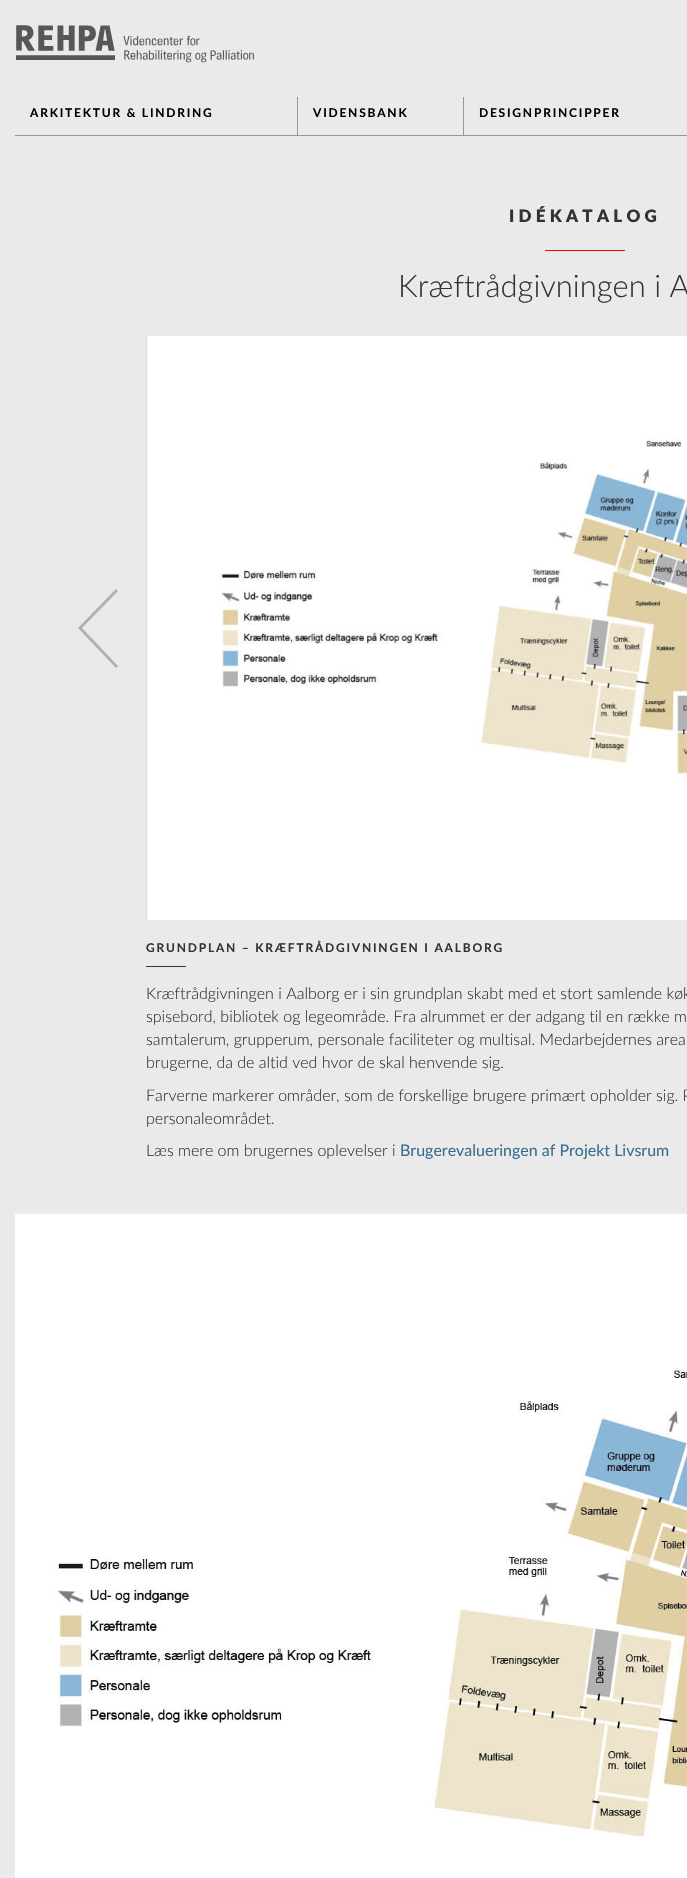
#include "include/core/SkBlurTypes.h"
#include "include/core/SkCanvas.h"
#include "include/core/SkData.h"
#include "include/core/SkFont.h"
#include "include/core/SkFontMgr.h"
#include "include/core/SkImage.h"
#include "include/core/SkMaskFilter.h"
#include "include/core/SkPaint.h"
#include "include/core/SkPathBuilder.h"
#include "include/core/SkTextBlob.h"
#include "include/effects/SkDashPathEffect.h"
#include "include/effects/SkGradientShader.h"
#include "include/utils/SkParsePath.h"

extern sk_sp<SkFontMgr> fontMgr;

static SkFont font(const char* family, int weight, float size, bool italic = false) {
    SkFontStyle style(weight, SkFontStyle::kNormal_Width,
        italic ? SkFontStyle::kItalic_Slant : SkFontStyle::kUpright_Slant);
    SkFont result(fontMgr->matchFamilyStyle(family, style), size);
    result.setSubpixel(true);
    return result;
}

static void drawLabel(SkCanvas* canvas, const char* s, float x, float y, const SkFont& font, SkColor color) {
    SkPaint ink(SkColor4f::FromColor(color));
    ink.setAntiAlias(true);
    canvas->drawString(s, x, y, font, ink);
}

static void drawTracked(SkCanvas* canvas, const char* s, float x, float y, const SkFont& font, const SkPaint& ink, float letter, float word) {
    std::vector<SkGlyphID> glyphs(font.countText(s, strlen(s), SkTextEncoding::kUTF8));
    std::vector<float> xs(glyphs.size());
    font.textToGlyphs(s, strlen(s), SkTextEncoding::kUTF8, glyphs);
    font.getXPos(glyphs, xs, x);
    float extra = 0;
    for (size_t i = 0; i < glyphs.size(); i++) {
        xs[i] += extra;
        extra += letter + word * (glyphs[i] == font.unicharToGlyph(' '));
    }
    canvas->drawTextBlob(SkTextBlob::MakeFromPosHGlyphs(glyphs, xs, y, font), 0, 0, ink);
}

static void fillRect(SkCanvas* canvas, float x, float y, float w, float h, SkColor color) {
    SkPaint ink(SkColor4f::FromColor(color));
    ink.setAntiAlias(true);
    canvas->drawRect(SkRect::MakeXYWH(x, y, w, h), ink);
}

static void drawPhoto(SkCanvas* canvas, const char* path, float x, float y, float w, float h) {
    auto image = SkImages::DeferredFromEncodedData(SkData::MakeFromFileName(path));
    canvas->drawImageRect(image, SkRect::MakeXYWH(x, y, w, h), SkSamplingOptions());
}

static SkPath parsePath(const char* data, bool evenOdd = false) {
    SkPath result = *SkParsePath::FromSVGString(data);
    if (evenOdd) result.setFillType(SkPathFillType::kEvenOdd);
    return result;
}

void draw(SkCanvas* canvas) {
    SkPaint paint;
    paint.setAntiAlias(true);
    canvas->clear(0xFFEAEAEA);
    drawPhoto(canvas, "assets/img1.png", 16, 25, 238, 38);
    fillRect(canvas, 15, 135, 672, 1, 0xFF989898);
    fillRect(canvas, 297, 97, 1, 38, 0xFF989898);
    SkFont font1 = font("Lato", 700, 12);
    paint.setColor(0xFF000000);
    drawTracked(canvas, "ARKITEKTUR & LINDRING", 30, 117, font1, paint, 1.8f, 0);
    fillRect(canvas, 463, 97, 1, 38, 0xFF989898);
    drawTracked(canvas, "VIDENSBANK", 313, 117, font1, paint, 1.8f, 0);
    drawTracked(canvas, "DESIGNPRINCIPPER", 479, 117, font1, paint, 1.8f, 0);
    SkFont font2 = font("Lato", 900, 17);
    paint.setColor(0xFF333333);
    drawTracked(canvas, "IDÉKATALOG", 509, 222, font2, paint, 4.25f, 0);
    fillRect(canvas, 545, 250, 80, 1, 0xFFFF0000);
    SkFont font3 = font("Lato", 300, 31);
    drawLabel(canvas, "Kræftrådgivningen i A", 398, 297, font3, 0xFF333333);
    paint.setColor(0xFFB0B0B0);
    canvas->drawPath(parsePath("M116 668L78 628L116 589L118 591L82 628L118 666Z"), paint);
    fillRect(canvas, 146, 336, 2, 584, 0xFFDDDDDD);
    drawPhoto(canvas, "assets/img2.png", 147, 336, 540, 584);
    paint.setColor(0xFF333333);
    drawTracked(canvas, "GRUNDPLAN – KRÆFTRÅDGIVNINGEN I AALBORG", 146, 952, font1, paint, 1.8f, 0);
    fillRect(canvas, 146, 966, 40, 1, 0xFF333333);
    SkFont font4 = font("Lato", 300, 16);
    drawLabel(canvas, "Kræftrådgivningen i Aalborg er i sin grundplan skabt med et stort samlende køk", 146, 999, font4, 0xFF333333);
    drawLabel(canvas, "spisebord, bibliotek og legeområde. Fra alrummet er der adgang til en række m", 146, 1022, font4, 0xFF333333);
    drawLabel(canvas, "samtalerum, grupperum, personale faciliteter og multisal. Medarbejdernes area", 146, 1045, font4, 0xFF333333);
    drawLabel(canvas, "brugerne, da de altid ved hvor de skal henvende sig.", 146, 1068, font4, 0xFF333333);
    drawLabel(canvas, "Farverne markerer områder, som de forskellige brugere primært opholder sig. P", 146, 1101, font4, 0xFF333333);
    drawLabel(canvas, "personaleområdet.", 146, 1124, font4, 0xFF333333);
    drawLabel(canvas, "Læs mere om brugernes oplevelser i", 146, 1156, font4, 0xFF333333);
    SkFont font5 = font("Lato", 400, 16);
    drawLabel(canvas, "Brugerevalueringen af Projekt Livsrum", 400, 1156, font5, 0xFF3B6E8E);
    drawPhoto(canvas, "assets/img3.png", 19, 1218, 668, 660);
    paint.setStroke(true);
    paint.setStrokeWidth(4);
    paint.setColor(0xFFFFFFFF);
    canvas->drawRect(SkRect::MakeXYWH(17, 1216, 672, 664), paint);
}
